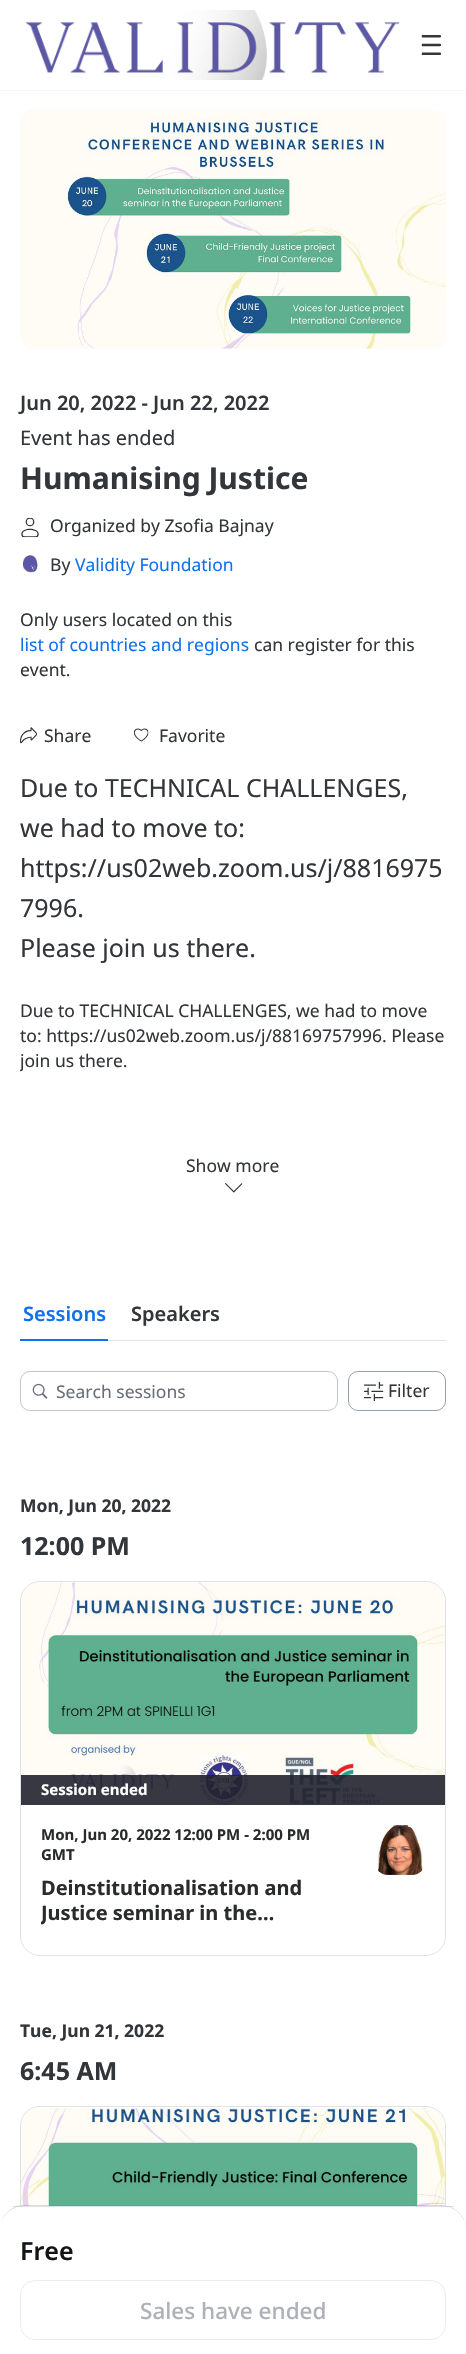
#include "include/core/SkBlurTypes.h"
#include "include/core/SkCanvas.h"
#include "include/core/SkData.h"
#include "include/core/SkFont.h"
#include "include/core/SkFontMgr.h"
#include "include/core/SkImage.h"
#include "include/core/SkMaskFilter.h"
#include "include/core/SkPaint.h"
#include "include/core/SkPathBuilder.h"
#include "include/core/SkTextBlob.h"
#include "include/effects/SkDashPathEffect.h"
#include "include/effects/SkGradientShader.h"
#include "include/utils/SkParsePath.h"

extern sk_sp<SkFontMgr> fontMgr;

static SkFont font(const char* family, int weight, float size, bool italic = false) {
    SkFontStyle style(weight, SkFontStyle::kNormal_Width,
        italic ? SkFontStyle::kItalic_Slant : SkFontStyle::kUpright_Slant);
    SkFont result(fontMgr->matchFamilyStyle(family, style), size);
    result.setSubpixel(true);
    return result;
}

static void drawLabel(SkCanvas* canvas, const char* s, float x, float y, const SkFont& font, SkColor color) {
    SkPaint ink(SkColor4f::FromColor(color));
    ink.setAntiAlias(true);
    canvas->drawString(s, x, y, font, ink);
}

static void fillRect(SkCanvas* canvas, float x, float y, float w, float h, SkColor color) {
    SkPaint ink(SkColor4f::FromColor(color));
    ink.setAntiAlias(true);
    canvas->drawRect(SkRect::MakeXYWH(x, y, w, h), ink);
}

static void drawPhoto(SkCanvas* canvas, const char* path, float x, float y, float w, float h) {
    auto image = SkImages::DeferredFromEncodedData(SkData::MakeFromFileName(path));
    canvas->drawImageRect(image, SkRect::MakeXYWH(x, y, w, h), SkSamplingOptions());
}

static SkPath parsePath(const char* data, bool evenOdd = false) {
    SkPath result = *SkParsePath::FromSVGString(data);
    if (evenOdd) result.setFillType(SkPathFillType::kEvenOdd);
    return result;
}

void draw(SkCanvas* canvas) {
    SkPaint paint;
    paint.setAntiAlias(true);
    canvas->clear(0xFFFFFFFF);
    fillRect(canvas, 0, 90, 466, 1, 0x0A232333);
    drawPhoto(canvas, "assets/img1.png", 26, 10, 374, 70);
    drawPhoto(canvas, "assets/img2.png", 421, 35, 20, 20);
    drawPhoto(canvas, "assets/img3.png", 20, 110, 426, 239);
    SkFont font1 = font("Noto Sans", 600, 20);
    drawLabel(canvas, "Jun 20, 2022 - Jun 22, 2022", 20, 410, font1, 0xFF323539);
    SkFont font2 = font("Noto Sans", 400, 20);
    drawLabel(canvas, "Event has ended", 20, 445, font2, 0xFF323539);
    SkFont font3 = font("Noto Sans", 700, 30);
    drawLabel(canvas, "Humanising Justice", 20, 489, font3, 0xFF323539);
    drawPhoto(canvas, "assets/img4.png", 21, 518, 18, 20);
    SkFont font4 = font("Noto Sans", 400, 17.5f);
    drawLabel(canvas, "Organized by Zsofia Bajnay", 50, 532, font4, 0xFF323539);
    drawPhoto(canvas, "assets/img5.png", 22, 555, 16, 18);
    drawLabel(canvas, "By", 50, 571, font4, 0xFF323539);
    drawLabel(canvas, "Validity Foundation", 75, 571, font4, 0xFF0E72ED);
    drawLabel(canvas, "Only users located on this", 20, 626, font4, 0xFF323539);
    drawLabel(canvas, "list of countries and regions", 20, 651, font4, 0xFF0E72ED);
    drawLabel(canvas, "can register for this", 254, 651, font4, 0xFF323539);
    drawLabel(canvas, "event.", 20, 676, font4, 0xFF323539);
    drawPhoto(canvas, "assets/img6.png", 20, 727, 17, 17);
    drawLabel(canvas, "Share", 44, 742, font4, 0xFF323539);
    drawPhoto(canvas, "assets/img7.png", 134, 728, 15, 14);
    drawLabel(canvas, "Favorite", 159, 742, font4, 0xFF323539);
    SkFont font5 = font("Noto Sans", 400, 25);
    drawLabel(canvas, "Due to TECHNICAL CHALLENGES,", 20, 797, font5, 0xFF323539);
    drawLabel(canvas, "we had to move to:", 20, 837, font5, 0xFF323539);
    drawLabel(canvas, "https://us02web.zoom.us/j/8816975", 20, 877, font5, 0xFF323539);
    drawLabel(canvas, "7996.", 20, 917, font5, 0xFF323539);
    drawLabel(canvas, "Please join us there.", 20, 957, font5, 0xFF323539);
    drawLabel(canvas, "Due to TECHNICAL CHALLENGES, we had to move", 20, 1017, font4, 0xFF323539);
    drawLabel(canvas, "to: https://us02web.zoom.us/j/88169757996. Please", 20, 1042, font4, 0xFF323539);
    canvas->save();
    canvas->clipRect(SkRect::MakeXYWH(20, 999, 426, 125));
    drawLabel(canvas, "join us there.", 20, 1067, font4, 0xFF323539);
    canvas->restore();
    drawLabel(canvas, "Show more", 186, 1172, font4, 0xFF323539);
    drawPhoto(canvas, "assets/img8.png", 225, 1183, 18, 10);
    paint.setStroke(true);
    paint.setStrokeWidth(1);
    paint.setColor(0xFFDFE3E8);
    canvas->drawRoundRect(SkRect::MakeXYWH(20.5f, 2106.5f, 425, 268), 19.5f, 19.5f, paint);
    drawPhoto(canvas, "assets/img13.png", 21, 2108, 424, 99);
    paint.setStroke(false);
    paint.setColor(0x406E7781);
    canvas->drawPath(parsePath("M25 2205C10 2205 0 2217 0 2231C0 2217 11 2206 25 2206H441C453 2206 463 2215 466 2226C464 2214 453 2205 441 2205Z"), paint);
    paint.setColor(0xFFFFFFFF);
    canvas->drawPath(parsePath("M25 2206H441C455 2206 466 2217 466 2231V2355H0V2231C0 2217 11 2206 25 2206Z"), paint);
    fillRect(canvas, 13, 2206, 441, 1, 0x2E525280);
    SkFont font6 = font("Noto Sans", 600, 25);
    drawLabel(canvas, "Free", 20, 2260, font6, 0xFF131619);
    paint.setStroke(true);
    paint.setColor(0xFFEBECED);
    canvas->drawRoundRect(SkRect::MakeXYWH(20.5f, 2280.5f, 425, 59), 14.5f, 14.5f, paint);
    SkFont font7 = font("Noto Sans", 500, 22.5f);
    drawLabel(canvas, "Sales have ended", 140, 2319, font7, 0xFFADB1B8);
    drawLabel(canvas, "Sessions", 23, 1321, font1, 0xFF0E72ED);
    drawLabel(canvas, "Speakers", 131, 1321, font1, 0xFF323539);
    fillRect(canvas, 20, 1339, 88, 2, 0xFF0E72ED);
    fillRect(canvas, 108, 1340, 338, 1, 0xFFDFE3E8);
    paint.setColor(0xFFC1C6CE);
    canvas->drawRoundRect(SkRect::MakeXYWH(20.5f, 1371.5f, 317, 39), 9.5f, 9.5f, paint);
    drawPhoto(canvas, "assets/img9.png", 32, 1383, 16, 16);
    drawLabel(canvas, "Search sessions", 56, 1398, font4, 0xFF686F79);
    paint.setColor(0xFF98A0A9);
    canvas->drawRoundRect(SkRect::MakeXYWH(348.5f, 1371.5f, 97, 39), 9.5f, 9.5f, paint);
    drawPhoto(canvas, "assets/img10.png", 364, 1381, 20, 20);
    drawLabel(canvas, "Filter", 388, 1397, font4, 0xFF323539);
    SkFont font8 = font("Noto Sans", 700, 17.5f);
    drawLabel(canvas, "Mon, Jun 20, 2022", 20, 1512, font8, 0xFF323539);
    SkFont font9 = font("Noto Sans", 700, 25);
    drawLabel(canvas, "12:00 PM", 20, 1555, font9, 0xFF323539);
    paint.setColor(0xFFDFE3E8);
    canvas->drawRoundRect(SkRect::MakeXYWH(20.5f, 1581.5f, 425, 374), 19.5f, 19.5f, paint);
    drawPhoto(canvas, "assets/img11.png", 21, 1582, 424, 223);
    fillRect(canvas, 21, 1775, 424, 30, 0xE6222230);
    SkFont font10 = font("Noto Sans", 700, 15);
    drawLabel(canvas, "Session ended", 41, 1795, font10, 0xFFFFFFFF);
    drawLabel(canvas, "Mon, Jun 20, 2022 12:00 PM - 2:00 PM", 41, 1840, font10, 0xFF2A2B2D);
    drawLabel(canvas, "GMT", 41, 1860, font10, 0xFF2A2B2D);
    SkFont font11 = font("Noto Sans", 700, 20);
    drawLabel(canvas, "Deinstitutionalisation and", 41, 1895, font11, 0xFF2A2B2D);
    canvas->save();
    canvas->clipRect(SkRect::MakeXYWH(41, 1875, 304, 50));
    drawLabel(canvas, "Justice seminar in the…", 41, 1920, font11, 0xFF2A2B2D);
    canvas->restore();
    drawPhoto(canvas, "assets/img12.png", 375, 1825, 48, 50);
    drawLabel(canvas, "Tue, Jun 21, 2022", 20, 2037, font8, 0xFF323539);
    drawLabel(canvas, "6:45 AM", 20, 2080, font9, 0xFF323539);
}
